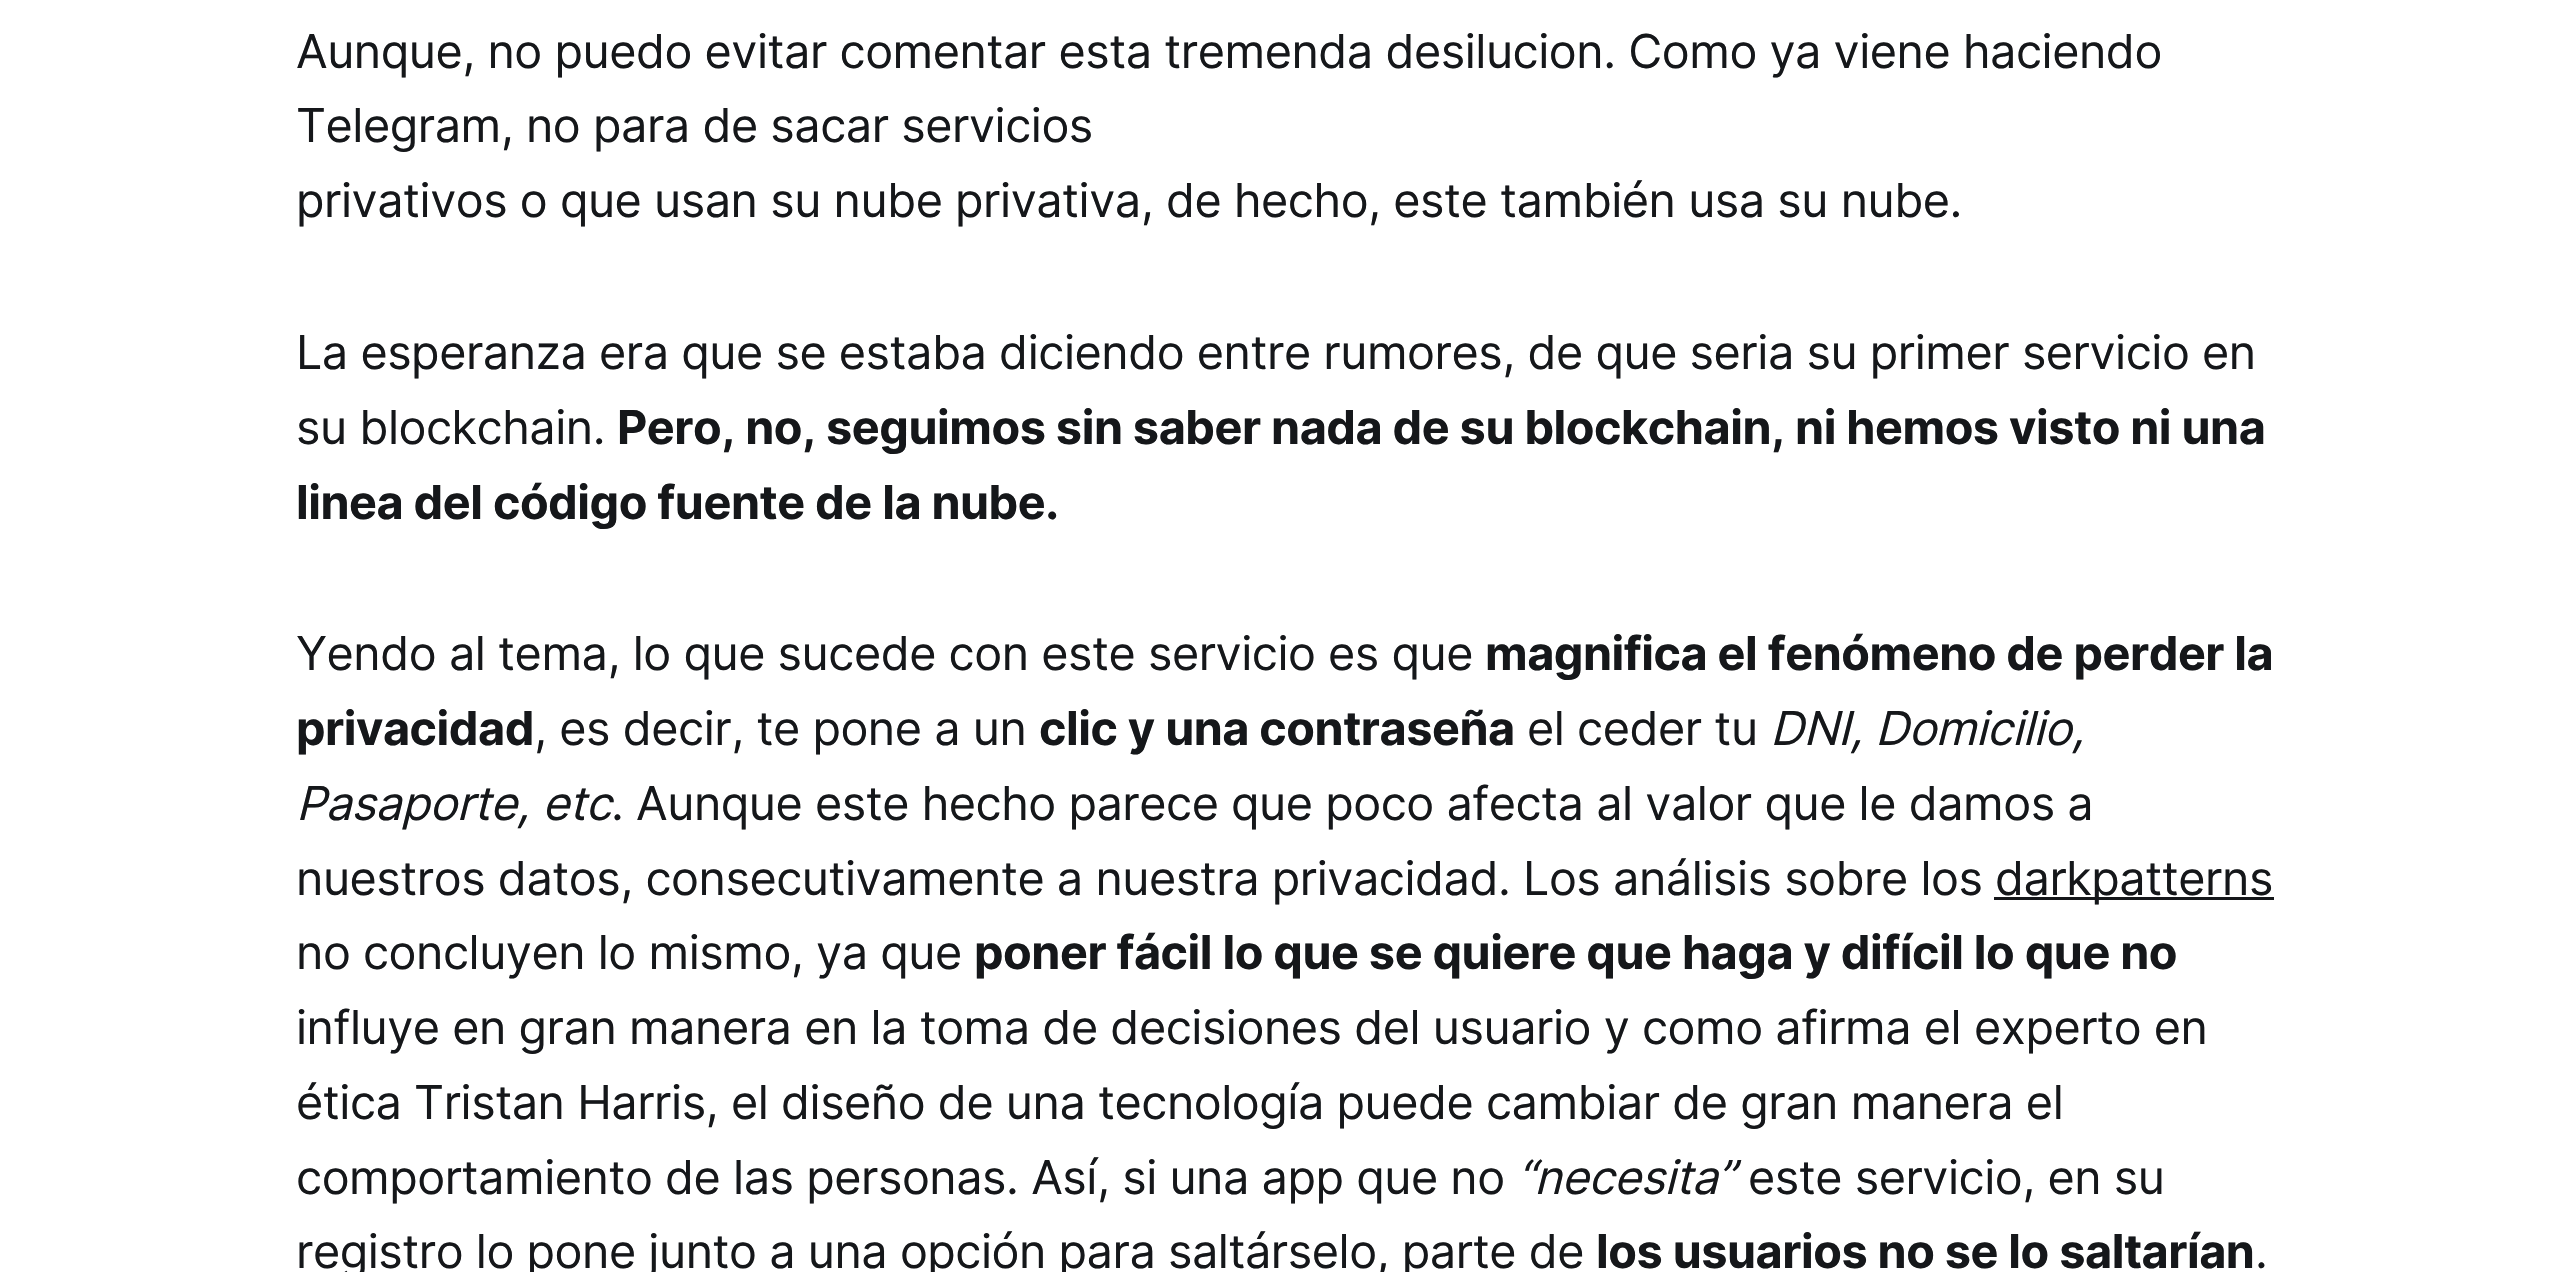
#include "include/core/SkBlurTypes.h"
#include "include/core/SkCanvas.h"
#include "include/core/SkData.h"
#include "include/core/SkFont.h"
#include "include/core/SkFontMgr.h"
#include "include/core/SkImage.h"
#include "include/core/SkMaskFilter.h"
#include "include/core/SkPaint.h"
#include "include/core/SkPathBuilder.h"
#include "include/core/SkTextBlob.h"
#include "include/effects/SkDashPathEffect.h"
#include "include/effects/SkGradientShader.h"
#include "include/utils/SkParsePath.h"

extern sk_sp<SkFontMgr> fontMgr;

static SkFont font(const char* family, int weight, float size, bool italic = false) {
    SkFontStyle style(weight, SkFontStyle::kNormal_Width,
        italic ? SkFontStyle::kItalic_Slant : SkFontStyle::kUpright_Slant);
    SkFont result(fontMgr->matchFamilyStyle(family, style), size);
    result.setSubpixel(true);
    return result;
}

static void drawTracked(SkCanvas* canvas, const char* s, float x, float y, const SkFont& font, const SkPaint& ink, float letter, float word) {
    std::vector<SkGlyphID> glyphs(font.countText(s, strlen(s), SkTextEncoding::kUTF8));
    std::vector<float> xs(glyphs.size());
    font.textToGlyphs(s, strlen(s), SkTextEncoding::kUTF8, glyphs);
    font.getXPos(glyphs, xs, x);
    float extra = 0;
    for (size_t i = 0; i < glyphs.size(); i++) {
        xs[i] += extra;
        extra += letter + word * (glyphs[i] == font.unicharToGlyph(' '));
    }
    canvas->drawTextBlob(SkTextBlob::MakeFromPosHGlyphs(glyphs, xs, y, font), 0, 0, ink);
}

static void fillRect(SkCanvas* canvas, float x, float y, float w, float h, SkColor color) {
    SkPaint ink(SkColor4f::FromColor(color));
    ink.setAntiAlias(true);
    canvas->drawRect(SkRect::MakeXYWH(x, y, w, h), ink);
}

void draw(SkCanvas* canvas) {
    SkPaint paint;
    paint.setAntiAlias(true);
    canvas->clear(0xFFFFFFFF);
    SkFont font1 = font("Inter", 400, 46.75f);
    paint.setColor(0xFF15171A);
    drawTracked(canvas, "Aunque, no puedo evitar comentar esta tremenda desilucion. Como ya viene haciendo", 296, 68, font1, paint, -0.47f, 0);
    drawTracked(canvas, "Telegram, no para de sacar servicios", 296, 142, font1, paint, -0.47f, 0);
    drawTracked(canvas, "privativos o que usan su nube privativa, de hecho, este también usa su nube.", 296, 217, font1, paint, -0.47f, 0);
    drawTracked(canvas, "La esperanza era que se estaba diciendo entre rumores, de que seria su primer servicio en", 296, 369, font1, paint, -0.47f, 0);
    drawTracked(canvas, "su blockchain.", 296, 444, font1, paint, -0.47f, 0);
    SkFont font2 = font("Inter", 700, 46.75f);
    drawTracked(canvas, "Pero, no, seguimos sin saber nada de su blockchain, ni hemos visto ni una", 617, 444, font2, paint, -0.47f, 0);
    drawTracked(canvas, "linea del código fuente de la nube.", 296, 519, font2, paint, -0.47f, 0);
    drawTracked(canvas, "Yendo al tema, lo que sucede con este servicio es que", 296, 670, font1, paint, -0.47f, 0);
    drawTracked(canvas, "magnifica el fenómeno de perder la", 1485, 670, font2, paint, -0.47f, 0);
    drawTracked(canvas, "privacidad", 296, 745, font2, paint, -0.47f, 0);
    drawTracked(canvas, ", es decir, te pone a un", 534, 745, font1, paint, -0.47f, 0);
    drawTracked(canvas, "clic y una contraseña", 1039, 745, font2, paint, -0.47f, 0);
    drawTracked(canvas, "el ceder tu", 1527, 745, font1, paint, -0.47f, 0);
    SkFont font3 = font("Inter", 400, 46.75f, true);
    drawTracked(canvas, "DNI, Domicilio,", 1770, 745, font3, paint, -0.47f, 0);
    drawTracked(canvas, "Pasaporte, etc", 296, 820, font3, paint, -0.47f, 0);
    drawTracked(canvas, ". Aunque este hecho parece que poco afecta al valor que le damos a", 611, 820, font1, paint, -0.47f, 0);
    drawTracked(canvas, "nuestros datos, consecutivamente a nuestra privacidad. Los análisis sobre los", 296, 895, font1, paint, -0.47f, 0);
    fillRect(canvas, 1994, 897, 280, 3, 0xFF15171A);
    drawTracked(canvas, "darkpatterns", 1995, 895, font1, paint, -0.47f, 0);
    drawTracked(canvas, "no concluyen lo mismo, ya que", 296, 969, font1, paint, -0.47f, 0);
    drawTracked(canvas, "poner fácil lo que se quiere que haga y difícil lo que no", 974, 969, font2, paint, -0.47f, 0);
    drawTracked(canvas, "influye en gran manera en la toma de decisiones del usuario y como afirma el experto en", 296, 1044, font1, paint, -0.47f, 0);
    drawTracked(canvas, "ética Tristan Harris, el diseño de una tecnología puede cambiar de gran manera el", 296, 1119, font1, paint, -0.47f, 0);
    drawTracked(canvas, "comportamiento de las personas. Así, si una app que no", 296, 1194, font1, paint, -0.47f, 0);
    drawTracked(canvas, "“necesita”", 1517, 1194, font3, paint, -0.47f, 0);
    drawTracked(canvas, "este servicio, en su", 1748, 1194, font1, paint, -0.47f, 0);
    drawTracked(canvas, "registro lo pone junto a una opción para saltárselo, parte de", 296, 1268, font1, paint, -0.47f, 0);
    drawTracked(canvas, "los usuarios no se lo saltarían", 1596, 1268, font2, paint, -0.47f, 0);
    drawTracked(canvas, ".", 2255, 1268, font1, paint, -0.47f, 0);
}
